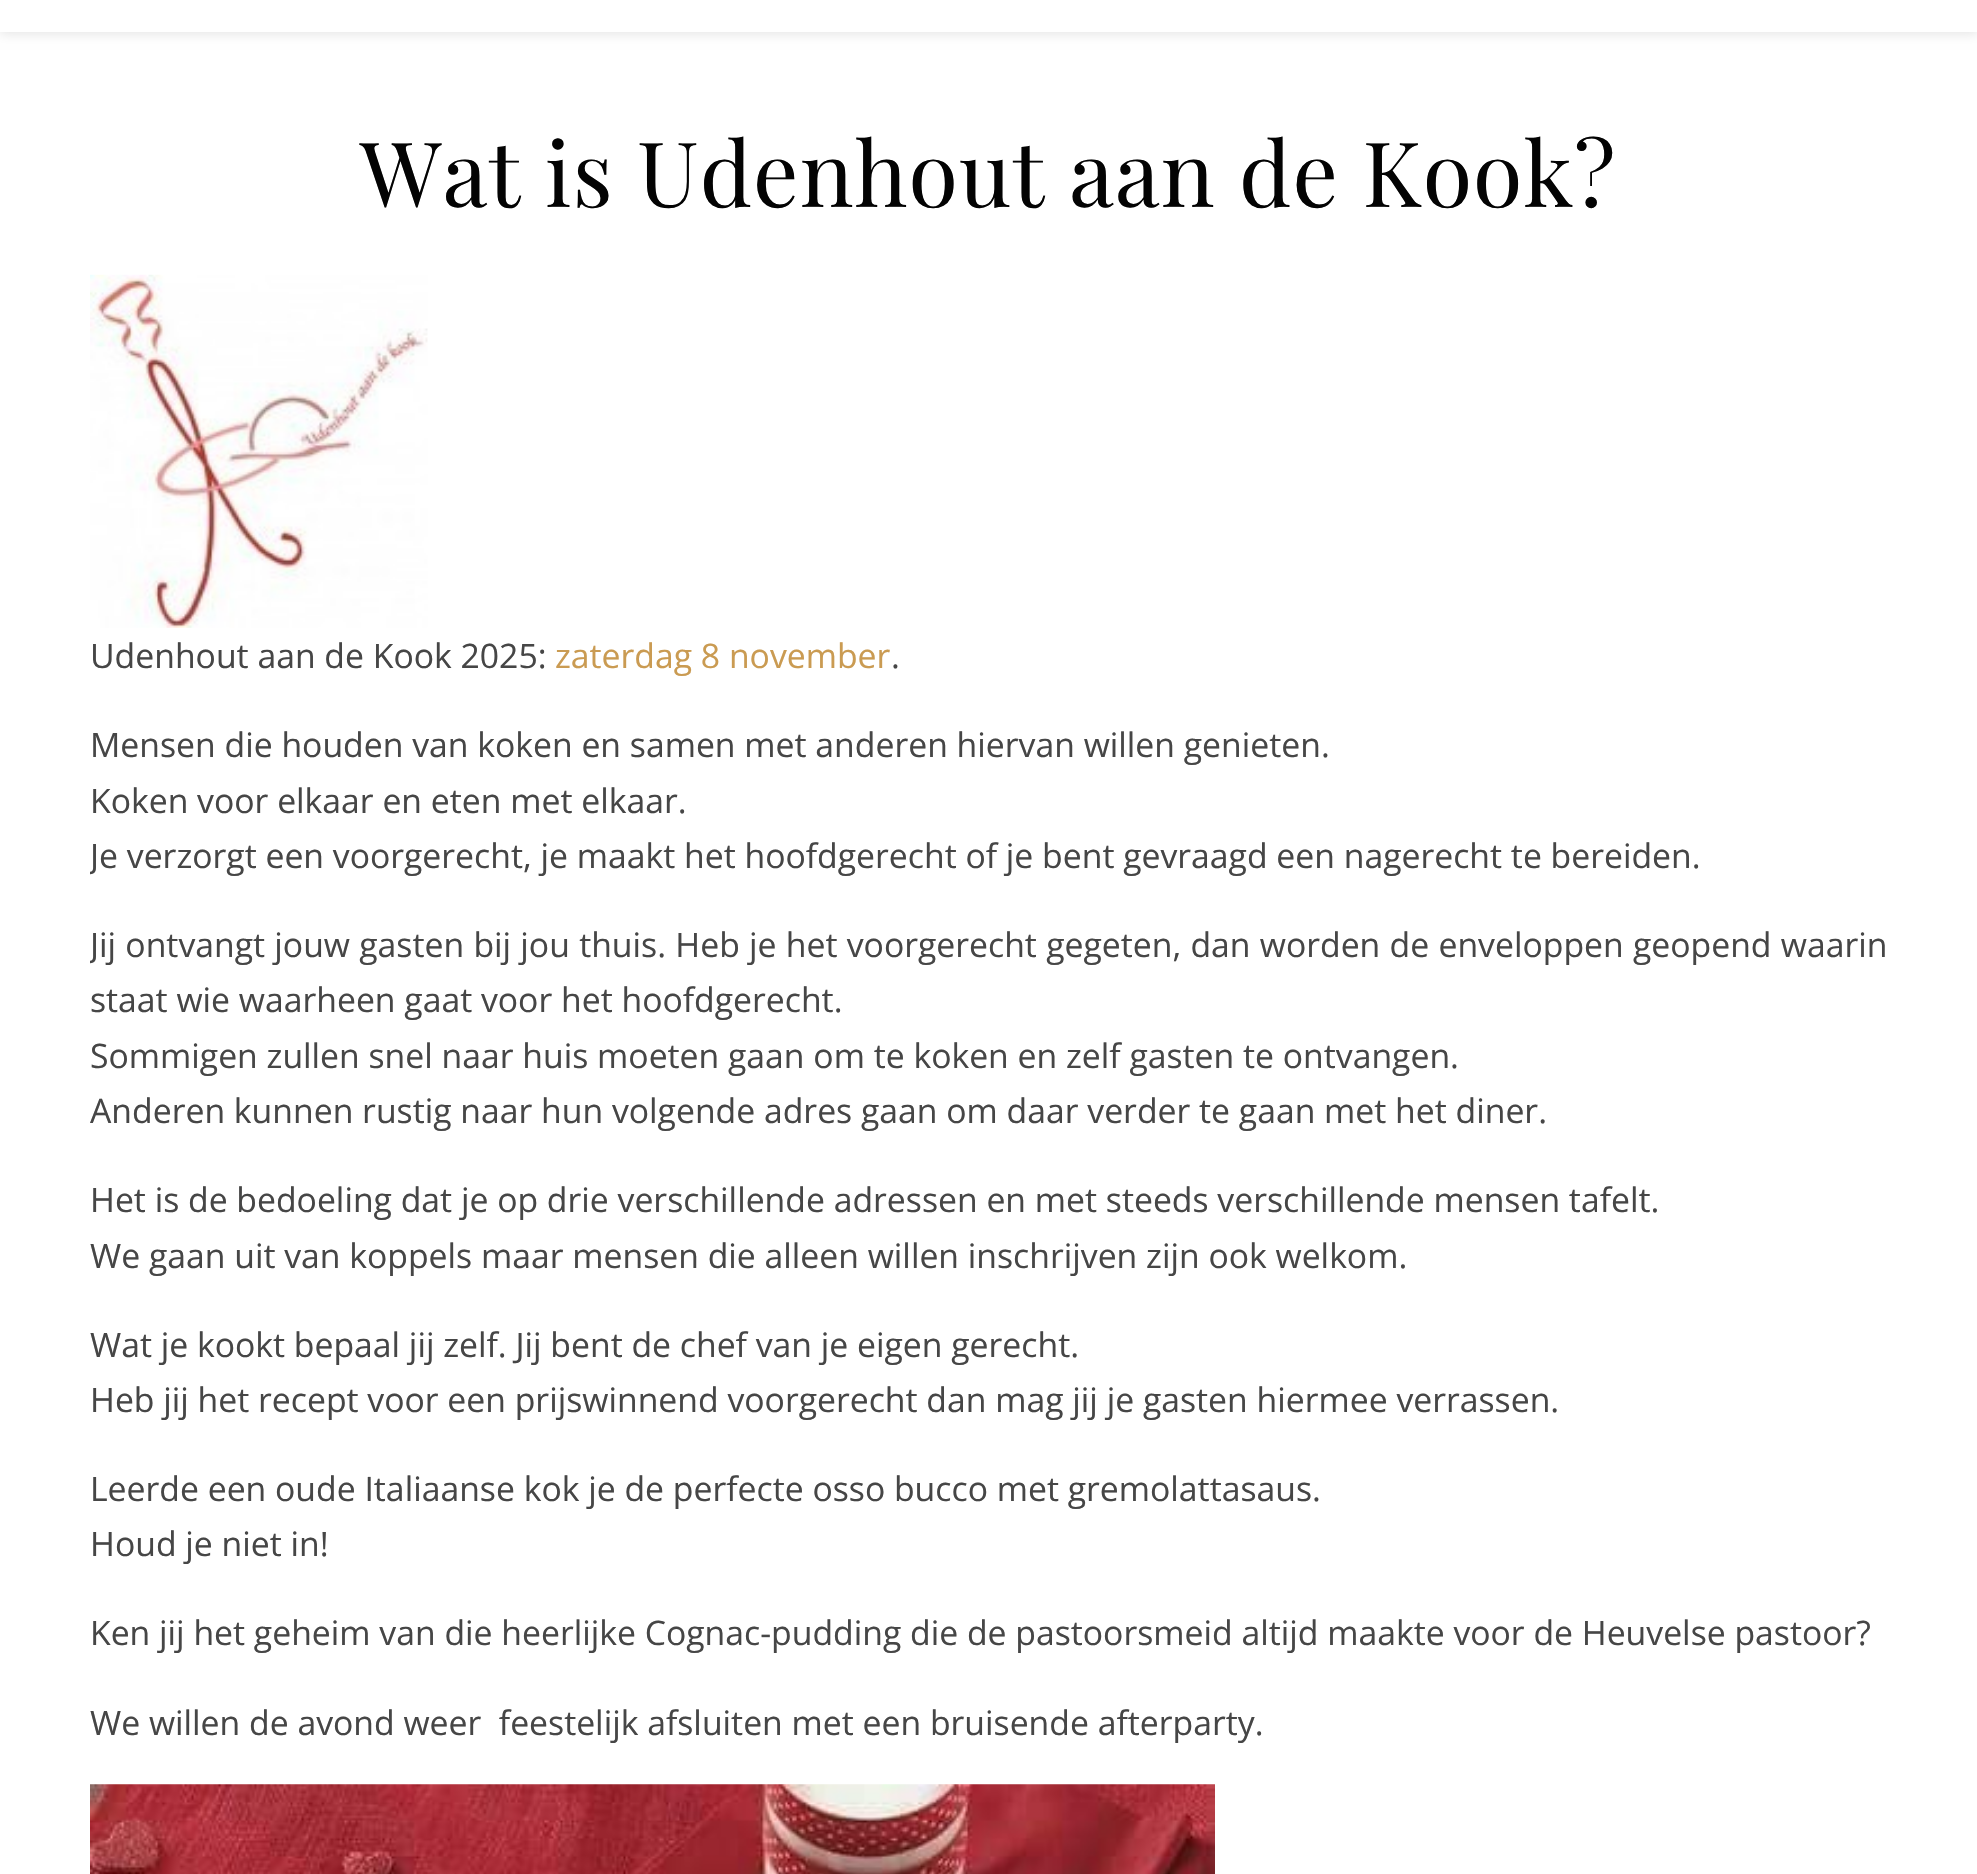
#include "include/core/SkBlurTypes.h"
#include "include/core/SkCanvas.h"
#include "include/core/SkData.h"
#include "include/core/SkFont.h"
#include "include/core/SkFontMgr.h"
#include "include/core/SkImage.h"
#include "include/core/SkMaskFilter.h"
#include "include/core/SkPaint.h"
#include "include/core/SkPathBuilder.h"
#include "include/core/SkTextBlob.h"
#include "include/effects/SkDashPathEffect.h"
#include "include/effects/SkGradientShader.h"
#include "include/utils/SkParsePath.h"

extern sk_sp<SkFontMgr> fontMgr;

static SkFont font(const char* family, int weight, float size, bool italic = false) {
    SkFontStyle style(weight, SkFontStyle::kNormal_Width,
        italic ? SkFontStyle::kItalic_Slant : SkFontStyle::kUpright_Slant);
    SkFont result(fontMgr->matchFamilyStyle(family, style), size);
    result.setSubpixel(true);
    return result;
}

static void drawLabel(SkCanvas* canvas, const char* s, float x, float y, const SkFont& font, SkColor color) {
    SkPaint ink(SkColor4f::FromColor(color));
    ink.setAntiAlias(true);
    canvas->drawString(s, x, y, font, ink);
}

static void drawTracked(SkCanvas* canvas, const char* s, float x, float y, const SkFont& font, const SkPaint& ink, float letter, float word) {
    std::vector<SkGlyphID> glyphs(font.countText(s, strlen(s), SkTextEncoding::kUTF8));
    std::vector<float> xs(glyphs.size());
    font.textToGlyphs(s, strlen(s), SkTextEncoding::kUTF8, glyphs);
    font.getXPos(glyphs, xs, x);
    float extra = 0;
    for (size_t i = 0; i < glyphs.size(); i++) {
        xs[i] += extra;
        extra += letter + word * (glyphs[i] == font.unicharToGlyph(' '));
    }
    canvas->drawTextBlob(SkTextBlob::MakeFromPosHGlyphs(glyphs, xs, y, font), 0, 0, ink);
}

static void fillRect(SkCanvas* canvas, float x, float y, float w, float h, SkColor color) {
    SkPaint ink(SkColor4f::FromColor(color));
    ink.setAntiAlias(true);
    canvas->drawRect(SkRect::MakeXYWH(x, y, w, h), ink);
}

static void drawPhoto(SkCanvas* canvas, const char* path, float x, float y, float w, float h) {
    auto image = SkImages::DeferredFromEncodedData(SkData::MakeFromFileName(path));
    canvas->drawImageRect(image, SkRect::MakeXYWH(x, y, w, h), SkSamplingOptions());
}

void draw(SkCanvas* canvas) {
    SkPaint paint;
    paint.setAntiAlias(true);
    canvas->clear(0xFFFFFFFF);
    paint.setColor(0x1A000000);
    paint.setMaskFilter(SkMaskFilter::MakeBlur(kNormal_SkBlurStyle, 5.5f));
    canvas->drawRect(SkRect::MakeXYWH(0, -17, 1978, 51), paint);
    paint.setMaskFilter(nullptr);
    fillRect(canvas, 0, 0, 1977, 32, 0xFFFFFFFF);
    SkFont font1 = font("Playfair Display", 400, 90);
    paint.setColor(0xFF030303);
    drawTracked(canvas, "Wat is Udenhout aan de Kook?", 360, 207, font1, paint, 1.1f, 0);
    drawPhoto(canvas, "assets/img1.png", 90, 274, 338, 354);
    SkFont font2 = font("Open Sans", 400, 33.75f);
    drawLabel(canvas, "Udenhout aan de Kook 2025:", 90, 668, font2, 0xFF464646);
    drawLabel(canvas, "zaterdag 8 november", 555, 668, font2, 0xFFCA9B52);
    drawLabel(canvas, ".", 891, 668, font2, 0xFF464646);
    drawLabel(canvas, "Mensen die houden van koken en samen met anderen hiervan willen genieten.", 90, 757, font2, 0xFF464646);
    drawLabel(canvas, "Koken voor elkaar en eten met elkaar.", 90, 813, font2, 0xFF464646);
    canvas->save();
    canvas->clipRect(SkRect::MakeXYWH(90, 275, 1798, 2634));
    drawLabel(canvas, "Je verzorgt een voorgerecht, je maakt het hoofdgerecht of je bent gevraagd een nagerecht te bereiden.", 90, 868, font2, 0xFF464646);
    paint.setColor(0xFF464646);
    drawTracked(canvas, "Jij ontvangt jouw gasten bij jou thuis. Heb je het voorgerecht gegeten, dan worden de enveloppen geopend waarin", 90, 957, font2, paint, 0, 0.5f);
    canvas->restore();
    drawLabel(canvas, "staat wie waarheen gaat voor het hoofdgerecht.", 90, 1012, font2, 0xFF464646);
    drawLabel(canvas, "Sommigen zullen snel naar huis moeten gaan om te koken en zelf gasten te ontvangen.", 90, 1068, font2, 0xFF464646);
    drawLabel(canvas, "Anderen kunnen rustig naar hun volgende adres gaan om daar verder te gaan met het diner.", 90, 1123, font2, 0xFF464646);
    drawLabel(canvas, "Het is de bedoeling dat je op drie verschillende adressen en met steeds verschillende mensen tafelt.", 90, 1212, font2, 0xFF464646);
    drawLabel(canvas, "We gaan uit van koppels maar mensen die alleen willen inschrijven zijn ook welkom.", 90, 1268, font2, 0xFF464646);
    drawLabel(canvas, "Wat je kookt bepaal jij zelf. Jij bent de chef van je eigen gerecht.", 90, 1357, font2, 0xFF464646);
    drawLabel(canvas, "Heb jij het recept voor een prijswinnend voorgerecht dan mag jij je gasten hiermee verrassen.", 90, 1412, font2, 0xFF464646);
    drawLabel(canvas, "Leerde een oude Italiaanse kok je de perfecte osso bucco met gremolattasaus.", 90, 1501, font2, 0xFF464646);
    drawLabel(canvas, "Houd je niet in!", 90, 1556, font2, 0xFF464646);
    drawLabel(canvas, "Ken jij het geheim van die heerlijke Cognac-pudding die de pastoorsmeid altijd maakte voor de Heuvelse pastoor?", 90, 1645, font2, 0xFF464646);
    drawLabel(canvas, "We willen de avond weer  feestelijk afsluiten met een bruisende afterparty.", 90, 1735, font2, 0xFF464646);
    drawPhoto(canvas, "assets/img2.png", 90, 1784, 1125, 90);
}
